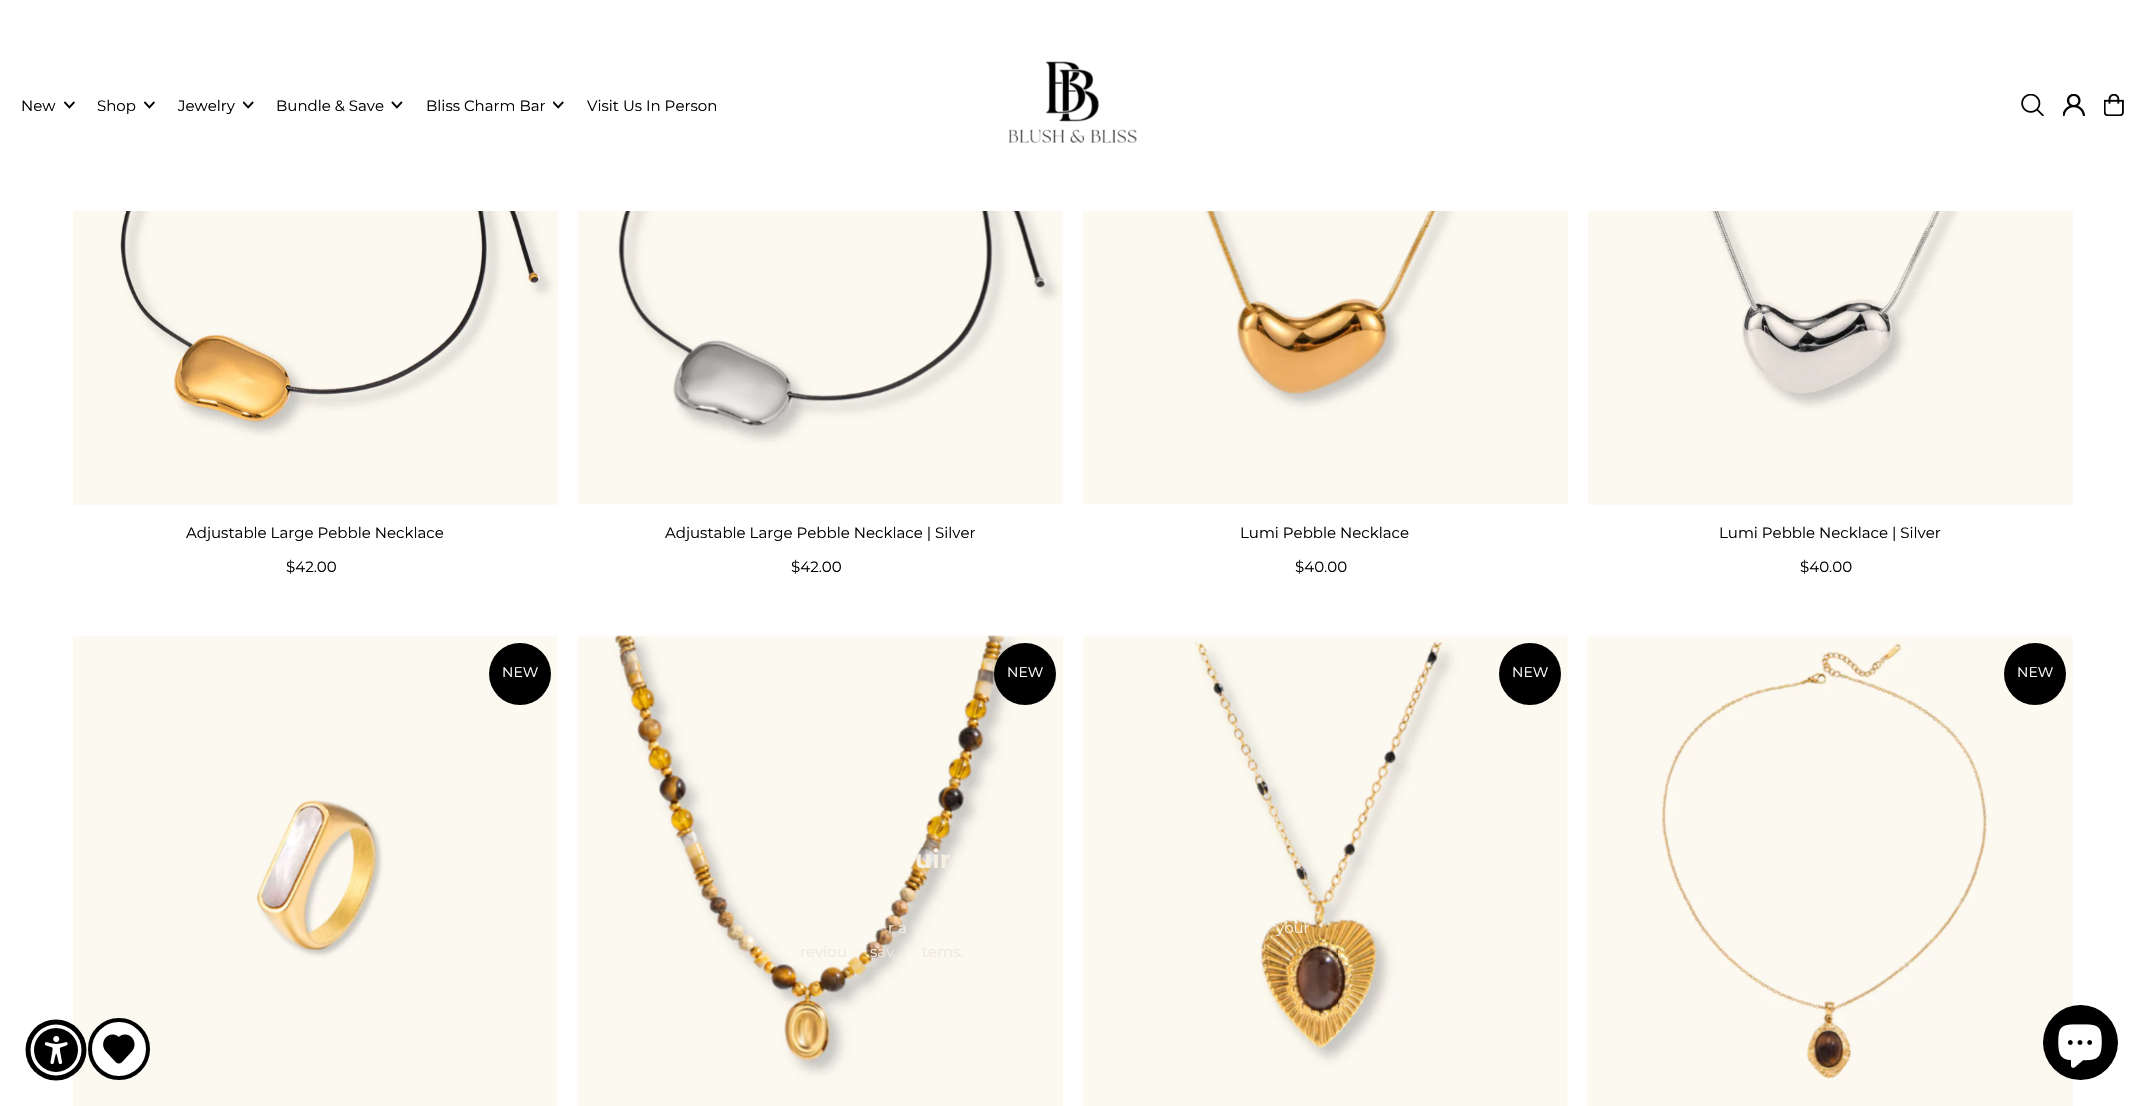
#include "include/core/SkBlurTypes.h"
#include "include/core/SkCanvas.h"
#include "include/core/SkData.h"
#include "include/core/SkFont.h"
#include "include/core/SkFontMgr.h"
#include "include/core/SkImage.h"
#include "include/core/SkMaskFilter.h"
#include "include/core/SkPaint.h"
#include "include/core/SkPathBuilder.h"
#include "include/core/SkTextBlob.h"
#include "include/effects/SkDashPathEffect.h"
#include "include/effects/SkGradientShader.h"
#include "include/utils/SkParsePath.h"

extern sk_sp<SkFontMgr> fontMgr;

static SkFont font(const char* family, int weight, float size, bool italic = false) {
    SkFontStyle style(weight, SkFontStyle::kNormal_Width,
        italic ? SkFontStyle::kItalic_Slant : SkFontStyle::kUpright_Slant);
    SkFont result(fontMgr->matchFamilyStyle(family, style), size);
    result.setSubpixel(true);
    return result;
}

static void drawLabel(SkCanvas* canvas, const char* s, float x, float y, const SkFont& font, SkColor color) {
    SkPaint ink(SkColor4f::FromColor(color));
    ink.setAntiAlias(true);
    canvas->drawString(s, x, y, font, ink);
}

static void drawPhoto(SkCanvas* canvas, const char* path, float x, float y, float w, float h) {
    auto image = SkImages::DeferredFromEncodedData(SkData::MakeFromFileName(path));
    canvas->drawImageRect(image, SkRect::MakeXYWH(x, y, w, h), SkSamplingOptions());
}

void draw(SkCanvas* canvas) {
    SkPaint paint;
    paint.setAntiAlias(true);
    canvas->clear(0xFFFFFFFF);
    SkFont font1 = font("Montserrat", 400, 15);
    drawLabel(canvas, "New", 21, 111, font1, 0xFF000000);
    drawPhoto(canvas, "assets/img1.png", 64, 101, 11, 8);
    drawLabel(canvas, "Shop", 97, 111, font1, 0xFF000000);
    drawPhoto(canvas, "assets/img1.png", 144, 101, 11, 8);
    drawLabel(canvas, "Jewelry", 178, 111, font1, 0xFF000000);
    drawPhoto(canvas, "assets/img2.png", 243, 101, 11, 8);
    drawLabel(canvas, "Bundle & Save", 276, 111, font1, 0xFF000000);
    drawPhoto(canvas, "assets/img3.png", 391, 101, 12, 8);
    drawLabel(canvas, "Bliss Charm Bar", 426, 111, font1, 0xFF000000);
    drawPhoto(canvas, "assets/img2.png", 553, 101, 11, 8);
    drawLabel(canvas, "Visit Us In Person", 587, 111, font1, 0xFF000000);
    drawPhoto(canvas, "assets/img4.png", 1008, 61, 129, 82);
    drawPhoto(canvas, "assets/img5.png", 2021, 94, 23, 22);
    drawPhoto(canvas, "assets/img6.png", 2063, 94, 22, 22);
    drawPhoto(canvas, "assets/img7.png", 2104, 94, 20, 22);
    drawPhoto(canvas, "assets/img8.png", 73, 211, 485, 294);
    drawLabel(canvas, "Adjustable Large Pebble Necklace", 186, 538, font1, 0xFF000000);
    drawLabel(canvas, "$42.00", 286, 572, font1, 0xFF000000);
    drawPhoto(canvas, "assets/img9.png", 578, 211, 485, 293);
    drawLabel(canvas, "Adjustable Large Pebble Necklace | Silver", 665, 538, font1, 0xFF000000);
    drawLabel(canvas, "$42.00", 791, 572, font1, 0xFF000000);
    drawPhoto(canvas, "assets/img10.png", 1082, 211, 486, 293);
    drawLabel(canvas, "Lumi Pebble Necklace", 1240, 538, font1, 0xFF000000);
    drawLabel(canvas, "$40.00", 1295, 572, font1, 0xFF000000);
    drawPhoto(canvas, "assets/img11.png", 1588, 211, 485, 294);
    drawLabel(canvas, "Lumi Pebble Necklace | Silver", 1719, 538, font1, 0xFF000000);
    drawLabel(canvas, "$40.00", 1800, 572, font1, 0xFF000000);
    drawPhoto(canvas, "assets/img12.png", 73, 636, 485, 470);
    paint.setColor(0xFF000000);
    canvas->drawCircle(520, 674, 31, paint);
    SkFont font2 = font("Montserrat", 400, 14);
    drawLabel(canvas, "NEW", 502, 677, font2, 0xFFFFFFFF);
    drawPhoto(canvas, "assets/img13.png", 577, 635, 486, 471);
    canvas->drawCircle(1025, 674, 31, paint);
    drawLabel(canvas, "NEW", 1007, 677, font2, 0xFFFFFFFF);
    drawPhoto(canvas, "assets/img14.png", 1083, 635, 485, 471);
    canvas->drawCircle(1530, 674, 31, paint);
    drawLabel(canvas, "NEW", 1512, 677, font2, 0xFFFFFFFF);
    drawPhoto(canvas, "assets/img15.png", 1587, 635, 486, 471);
    canvas->drawCircle(2035, 674, 31, paint);
    drawLabel(canvas, "NEW", 2017, 677, font2, 0xFFFFFFFF);
    SkFont font3 = font("Montserrat", 700, 25);
    drawLabel(canvas, "uir", 915, 868, font3, 0xFFF5EFE3);
    drawLabel(canvas, "r a", 888, 933, font1, 0xFFF5EFE3);
    drawLabel(canvas, "your", 1276, 933, font1, 0xFFF5EFE3);
    drawLabel(canvas, "reviou", 800, 957, font1, 0xFFEFE8DC);
    drawLabel(canvas, "sav", 870, 957, font1, 0xFFEFE8DC);
    drawLabel(canvas, "tems.", 922, 957, font1, 0xFFEFE8DC);
    paint.setColor(0xFFFFFFFF);
    canvas->drawOval(SkRect::MakeXYWH(88, 1019, 62, 60), paint);
    paint.setStroke(true);
    paint.setStrokeWidth(4);
    paint.setColor(0xFF000000);
    canvas->drawCircle(119, 1049, 29, paint);
    drawPhoto(canvas, "assets/img16.png", 103, 1034, 32, 30);
    paint.setStroke(false);
    canvas->drawCircle(56, 1050, 30.5f, paint);
    paint.setColor(0xFFFFFFFF);
    canvas->drawCircle(56, 1050, 25.5f, paint);
    paint.setColor(0xFF000000);
    canvas->drawCircle(56, 1050, 22, paint);
    drawPhoto(canvas, "assets/img17.png", 44, 1036, 24, 28);
    canvas->drawCircle(2080.5f, 1042.5f, 37.5f, paint);
    drawPhoto(canvas, "assets/img18.png", 2058, 1024, 44, 44);
}
